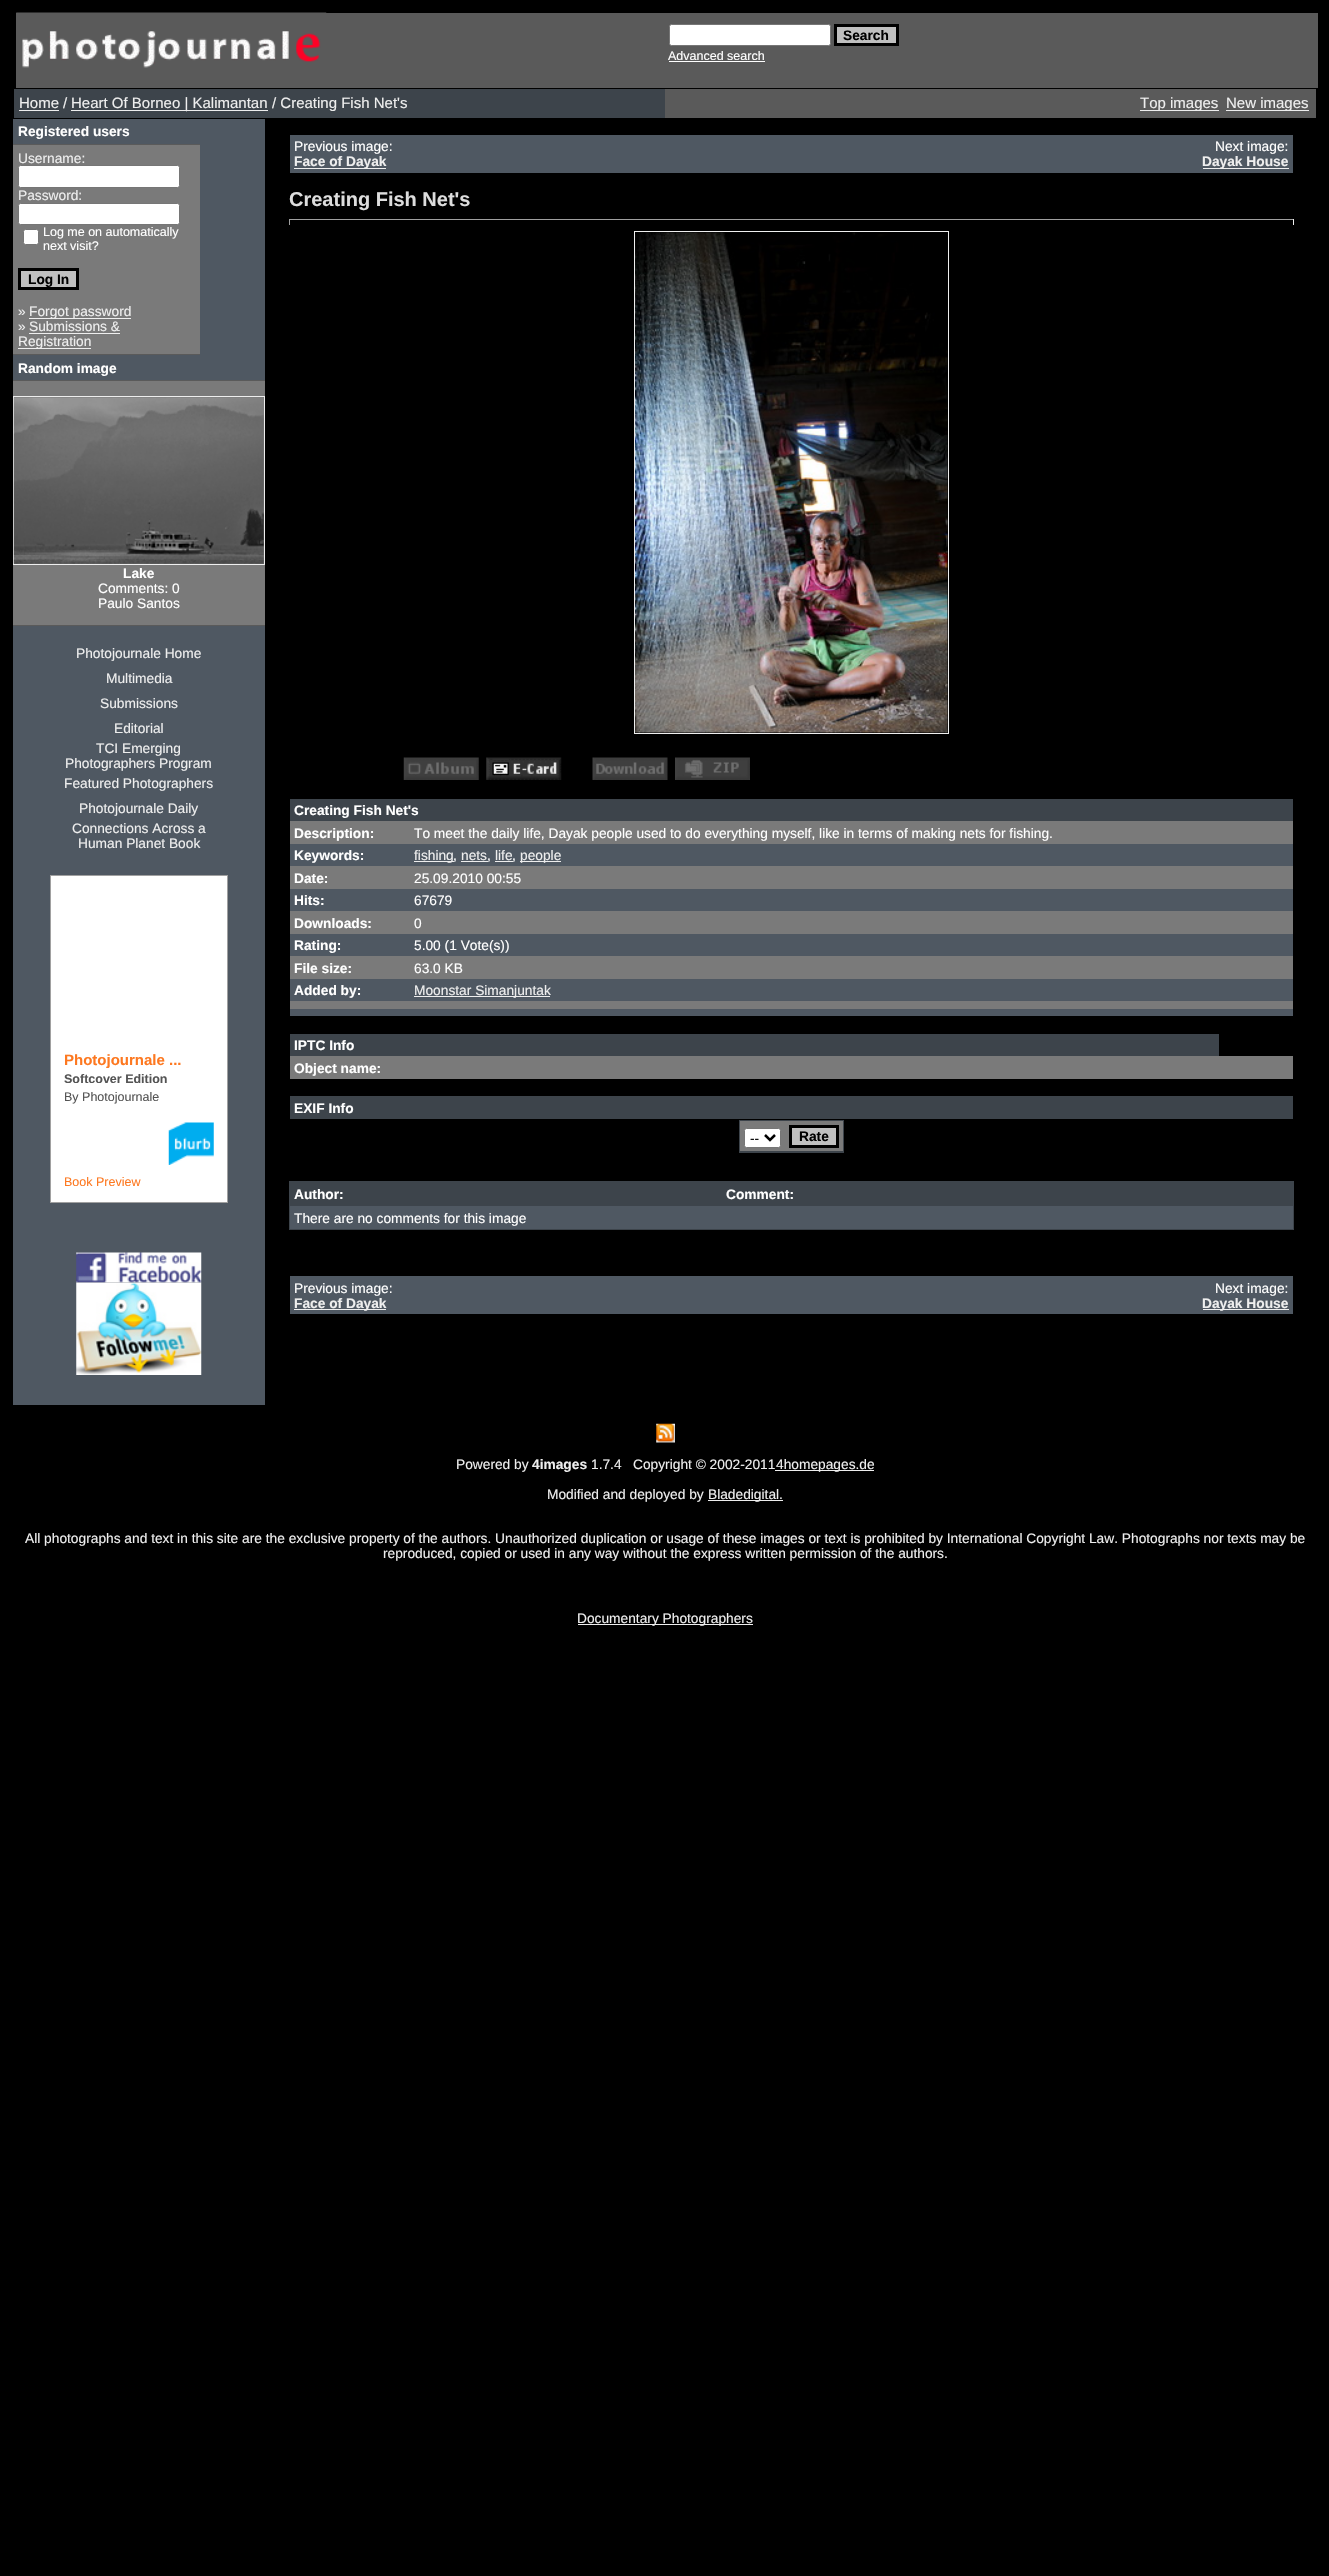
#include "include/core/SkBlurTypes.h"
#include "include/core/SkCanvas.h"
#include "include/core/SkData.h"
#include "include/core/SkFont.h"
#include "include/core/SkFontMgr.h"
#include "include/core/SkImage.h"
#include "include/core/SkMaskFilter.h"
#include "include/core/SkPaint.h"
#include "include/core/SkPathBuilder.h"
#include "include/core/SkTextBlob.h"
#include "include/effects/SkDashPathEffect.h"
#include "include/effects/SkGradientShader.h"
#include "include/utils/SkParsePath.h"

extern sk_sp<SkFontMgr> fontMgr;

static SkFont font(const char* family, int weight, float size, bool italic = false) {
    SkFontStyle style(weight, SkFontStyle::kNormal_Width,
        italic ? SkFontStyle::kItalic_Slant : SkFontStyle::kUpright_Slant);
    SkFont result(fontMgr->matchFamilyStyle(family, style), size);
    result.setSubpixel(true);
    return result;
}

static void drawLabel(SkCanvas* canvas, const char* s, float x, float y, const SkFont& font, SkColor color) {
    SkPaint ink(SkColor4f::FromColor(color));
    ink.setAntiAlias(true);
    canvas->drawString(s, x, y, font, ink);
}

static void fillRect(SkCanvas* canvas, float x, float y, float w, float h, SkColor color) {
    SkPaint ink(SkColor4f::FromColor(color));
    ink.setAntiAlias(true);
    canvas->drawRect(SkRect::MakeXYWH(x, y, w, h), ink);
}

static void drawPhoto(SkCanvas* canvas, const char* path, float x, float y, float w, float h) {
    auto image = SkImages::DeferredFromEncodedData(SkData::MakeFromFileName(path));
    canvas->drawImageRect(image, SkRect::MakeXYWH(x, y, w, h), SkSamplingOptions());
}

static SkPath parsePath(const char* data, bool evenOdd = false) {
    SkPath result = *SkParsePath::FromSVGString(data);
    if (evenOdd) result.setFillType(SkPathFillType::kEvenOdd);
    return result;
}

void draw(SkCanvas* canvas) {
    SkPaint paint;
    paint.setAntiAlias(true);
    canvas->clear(0xFF000000);
    fillRect(canvas, 16, 13, 1302, 75, 0xFF5A5A5A);
    drawPhoto(canvas, "assets/img1.png", 16, 12, 311, 56);
    paint.setColor(0xFFFFFFFF);
    canvas->drawRoundRect(SkRect::MakeXYWH(669.5f, 24.5f, 161, 21), 2, 2, paint);
    paint.setStroke(true);
    paint.setStrokeWidth(1);
    paint.setColor(0xFF767676);
    canvas->drawRoundRect(SkRect::MakeXYWH(669.5f, 24.5f, 161, 21), 2, 2, paint);
    paint.setStroke(false);
    paint.setColor(0xFFC0C0C0);
    canvas->drawRect(SkRect::MakeXYWH(835.5f, 25.5f, 62, 19), paint);
    paint.setStroke(true);
    paint.setStrokeWidth(3);
    paint.setColor(0xFF000000);
    canvas->drawRect(SkRect::MakeXYWH(835.5f, 25.5f, 62, 19), paint);
    SkFont font1 = font("Liberation Sans", 700, 13.75f);
    drawLabel(canvas, "Search", 843, 40, font1, 0xFF000000);
    SkFont font2 = font("Liberation Sans", 400, 12.5f);
    drawLabel(canvas, "Advanced search", 668, 60, font2, 0xFFFFFFFF);
    fillRect(canvas, 669, 61, 96, 1, 0xFFFFFFFF);
    fillRect(canvas, 665, 89, 651, 29, 0xFF5A5A5A);
    fillRect(canvas, 14, 89, 651, 29, 0xFF3D444B);
    SkFont font3 = font("Liberation Sans", 400, 15);
    drawLabel(canvas, "Home", 19, 108, font3, 0xFFEEEEEE);
    fillRect(canvas, 19, 110, 40, 1, 0xFFEEEEEE);
    drawLabel(canvas, "/", 63, 108, font3, 0xFFEEEEEE);
    fillRect(canvas, 71, 110, 197, 1, 0xFFEEEEEE);
    drawLabel(canvas, "Heart Of Borneo | Kalimantan", 71, 108, font3, 0xFFEEEEEE);
    drawLabel(canvas, "/ Creating Fish Net's", 272, 108, font3, 0xFFEEEEEE);
    fillRect(canvas, 1140, 110, 79, 1, 0xFFEEEEEE);
    drawLabel(canvas, "Top images", 1140, 108, font3, 0xFFEEEEEE);
    fillRect(canvas, 1226, 110, 83, 1, 0xFFEEEEEE);
    drawLabel(canvas, "New images", 1226, 108, font3, 0xFFEEEEEE);
    fillRect(canvas, 13, 119, 252, 1286, 0xFF4F5862);
    drawLabel(canvas, "Registered users", 18, 136, font1, 0xFFFFFFFF);
    fillRect(canvas, 13, 144, 187, 1, 0xFF5A5A5A);
    fillRect(canvas, 13, 145, 187, 209, 0xFF7A7A7A);
    SkFont font4 = font("Liberation Sans", 400, 13.75f);
    drawLabel(canvas, "Username:", 18, 163, font4, 0xFFEEEEEE);
    paint.setStroke(false);
    paint.setColor(0xFFFFFFFF);
    canvas->drawRoundRect(SkRect::MakeXYWH(18.5f, 165.5f, 161, 22), 2, 2, paint);
    paint.setStroke(true);
    paint.setStrokeWidth(1);
    paint.setColor(0xFF767676);
    canvas->drawRoundRect(SkRect::MakeXYWH(18.5f, 165.5f, 161, 22), 2, 2, paint);
    drawLabel(canvas, "Password:", 18, 200, font4, 0xFFEEEEEE);
    paint.setStroke(false);
    paint.setColor(0xFFFFFFFF);
    canvas->drawRoundRect(SkRect::MakeXYWH(18.5f, 203.5f, 161, 21), 2, 2, paint);
    paint.setStroke(true);
    paint.setColor(0xFF767676);
    canvas->drawRoundRect(SkRect::MakeXYWH(18.5f, 203.5f, 161, 21), 2, 2, paint);
    paint.setStroke(false);
    paint.setColor(0xFFFFFFFF);
    canvas->drawRoundRect(SkRect::MakeXYWH(23.5f, 229.5f, 15, 15), 2, 2, paint);
    paint.setStroke(true);
    paint.setColor(0xFF767676);
    canvas->drawRoundRect(SkRect::MakeXYWH(23.5f, 229.5f, 15, 15), 2, 2, paint);
    drawLabel(canvas, "Log me on automatically", 43, 236, font2, 0xFFFFFFFF);
    drawLabel(canvas, "next visit?", 43, 250, font2, 0xFFFFFFFF);
    paint.setStroke(false);
    paint.setColor(0xFFC0C0C0);
    canvas->drawRect(SkRect::MakeXYWH(19.5f, 269.5f, 58, 19), paint);
    paint.setStroke(true);
    paint.setStrokeWidth(3);
    paint.setColor(0xFF000000);
    canvas->drawRect(SkRect::MakeXYWH(19.5f, 269.5f, 58, 19), paint);
    drawLabel(canvas, "Log In", 28, 284, font1, 0xFF000000);
    drawLabel(canvas, "»", 18, 316, font4, 0xFFEEEEEE);
    fillRect(canvas, 29, 318, 102, 1, 0xFFEEEEEE);
    drawLabel(canvas, "Forgot password", 29, 316, font4, 0xFFEEEEEE);
    drawLabel(canvas, "»", 18, 331, font4, 0xFFEEEEEE);
    drawLabel(canvas, "Submissions &", 29, 331, font4, 0xFFEEEEEE);
    fillRect(canvas, 29, 333, 91, 1, 0xFFEEEEEE);
    fillRect(canvas, 18, 348, 73, 1, 0xFFEEEEEE);
    drawLabel(canvas, "Registration", 18, 346, font4, 0xFFEEEEEE);
    fillRect(canvas, 13, 354, 187, 1, 0xFF5A5A5A);
    drawLabel(canvas, "Random image", 18, 373, font1, 0xFFFFFFFF);
    fillRect(canvas, 13, 380, 252, 1, 0xFF5A5A5A);
    fillRect(canvas, 13, 381, 252, 244, 0xFF7A7A7A);
    paint.setStrokeWidth(1);
    paint.setColor(0xFFEEEEEE);
    canvas->drawRect(SkRect::MakeXYWH(13.5f, 396.5f, 251, 168), paint);
    drawPhoto(canvas, "assets/img2.png", 13, 397, 251, 167);
    drawLabel(canvas, "Lake", 123, 578, font1, 0xFFFFFFFF);
    drawLabel(canvas, "Comments: 0", 98, 593, font4, 0xFFFFFFFF);
    drawLabel(canvas, "Paulo Santos", 98, 608, font4, 0xFFFFFFFF);
    fillRect(canvas, 13, 625, 252, 1, 0xFF5A5A5A);
    drawLabel(canvas, "Photojournale Home", 76, 658, font4, 0xFFEEEEEE);
    drawLabel(canvas, "Multimedia", 106, 683, font4, 0xFFEEEEEE);
    drawLabel(canvas, "Submissions", 100, 708, font4, 0xFFEEEEEE);
    drawLabel(canvas, "Editorial", 114, 733, font4, 0xFFEEEEEE);
    drawLabel(canvas, "TCI Emerging", 96, 753, font4, 0xFFEEEEEE);
    drawLabel(canvas, "Photographers Program", 65, 768, font4, 0xFFEEEEEE);
    drawLabel(canvas, "Featured Photographers", 64, 788, font4, 0xFFEEEEEE);
    drawLabel(canvas, "Photojournale Daily", 79, 813, font4, 0xFFEEEEEE);
    drawLabel(canvas, "Connections Across a", 72, 833, font4, 0xFFEEEEEE);
    drawLabel(canvas, "Human Planet Book", 78, 848, font4, 0xFFEEEEEE);
    paint.setStroke(false);
    paint.setColor(0xFFFFFFFF);
    canvas->drawRect(SkRect::MakeXYWH(50.5f, 875.5f, 177, 327), paint);
    paint.setStroke(true);
    paint.setColor(0xFFA0A0A0);
    canvas->drawRect(SkRect::MakeXYWH(50.5f, 875.5f, 177, 327), paint);
    SkFont font5 = font("Liberation Sans", 700, 15);
    drawLabel(canvas, "Photojournale ...", 64, 1065, font5, 0xFFFD7820);
    SkFont font6 = font("Liberation Sans", 700, 12.5f);
    drawLabel(canvas, "Softcover Edition", 64, 1083, font6, 0xFF545454);
    drawLabel(canvas, "By Photojournale", 64, 1101, font2, 0xFF545454);
    drawPhoto(canvas, "assets/img3.png", 168, 1122, 46, 43);
    drawLabel(canvas, "Book Preview", 64, 1186, font2, 0xFFFD7820);
    drawPhoto(canvas, "assets/img4.png", 76, 1252, 126, 31);
    drawPhoto(canvas, "assets/img5.png", 76, 1282, 126, 93);
    fillRect(canvas, 290, 135, 1003, 38, 0xFF4F5862);
    drawLabel(canvas, "Previous image:", 294, 151, font4, 0xFFFFFFFF);
    fillRect(canvas, 294, 168, 92, 1, 0xFFEEEEEE);
    drawLabel(canvas, "Face of Dayak", 294, 166, font1, 0xFFEEEEEE);
    drawLabel(canvas, "Next image:", 1215, 151, font4, 0xFFFFFFFF);
    fillRect(canvas, 1203, 168, 86, 1, 0xFFEEEEEE);
    drawLabel(canvas, "Dayak House", 1202, 166, font1, 0xFFEEEEEE);
    SkFont font7 = font("Liberation Sans", 700, 20);
    drawLabel(canvas, "Creating Fish Net's", 289, 206, font7, 0xFFDDDDDD);
    fillRect(canvas, 289, 219, 1005, 1, 0xFF9F9F9F);
    fillRect(canvas, 1293, 219, 1, 6, 0xFFEEEEEE);
    fillRect(canvas, 289, 219, 1, 6, 0xFF9F9F9F);
    paint.setColor(0xFFEFEFEF);
    canvas->drawRect(SkRect::MakeXYWH(634.5f, 231.5f, 314, 502), paint);
    drawPhoto(canvas, "assets/img6.png", 635, 232, 313, 501);
    drawPhoto(canvas, "assets/img7.png", 403, 757, 76, 23);
    drawPhoto(canvas, "assets/img8.png", 486, 757, 76, 23);
    drawPhoto(canvas, "assets/img9.png", 592, 757, 76, 23);
    drawPhoto(canvas, "assets/img10.png", 675, 757, 75, 23);
    fillRect(canvas, 290, 799, 1003, 22, 0xFF3D444B);
    drawLabel(canvas, "Creating Fish Net's", 294, 815, font1, 0xFFFFFFFF);
    fillRect(canvas, 290, 821, 1003, 23, 0xFF7A7A7A);
    drawLabel(canvas, "Description:", 294, 838, font1, 0xFFFFFFFF);
    drawLabel(canvas, "To meet the daily life, Dayak people used to do everything myself, like in terms of making nets for fishing.", 414, 838, font4, 0xFFFFFFFF);
    fillRect(canvas, 290, 844, 1003, 22, 0xFF4F5862);
    drawLabel(canvas, "Keywords:", 294, 860, font1, 0xFFFFFFFF);
    fillRect(canvas, 414, 861, 40, 1, 0xFFEEEEEE);
    drawLabel(canvas, "fishing", 414, 860, font4, 0xFFEEEEEE);
    drawLabel(canvas, ",", 453, 860, font4, 0xFFFFFFFF);
    drawLabel(canvas, "nets", 461, 860, font4, 0xFFEEEEEE);
    fillRect(canvas, 461, 861, 27, 1, 0xFFEEEEEE);
    drawLabel(canvas, ",", 487, 860, font4, 0xFFFFFFFF);
    drawLabel(canvas, "life", 495, 860, font4, 0xFFEEEEEE);
    fillRect(canvas, 495, 861, 18, 1, 0xFFEEEEEE);
    drawLabel(canvas, ",", 512, 860, font4, 0xFFFFFFFF);
    fillRect(canvas, 520, 861, 41, 1, 0xFFEEEEEE);
    drawLabel(canvas, "people", 520, 860, font4, 0xFFEEEEEE);
    fillRect(canvas, 290, 866, 1003, 23, 0xFF7A7A7A);
    drawLabel(canvas, "Date:", 294, 883, font1, 0xFFFFFFFF);
    drawLabel(canvas, "25.09.2010 00:55", 414, 883, font4, 0xFFFFFFFF);
    fillRect(canvas, 290, 889, 1003, 22, 0xFF4F5862);
    drawLabel(canvas, "Hits:", 294, 905, font1, 0xFFFFFFFF);
    drawLabel(canvas, "67679", 414, 905, font4, 0xFFFFFFFF);
    fillRect(canvas, 290, 911, 1003, 23, 0xFF7A7A7A);
    drawLabel(canvas, "Downloads:", 294, 928, font1, 0xFFFFFFFF);
    drawLabel(canvas, "0", 414, 928, font4, 0xFFFFFFFF);
    fillRect(canvas, 290, 934, 1003, 22, 0xFF4F5862);
    drawLabel(canvas, "Rating:", 294, 950, font1, 0xFFFFFFFF);
    drawLabel(canvas, "5.00 (1 Vote(s))", 414, 950, font4, 0xFFFFFFFF);
    fillRect(canvas, 290, 956, 1003, 23, 0xFF7A7A7A);
    drawLabel(canvas, "File size:", 294, 973, font1, 0xFFFFFFFF);
    drawLabel(canvas, "63.0 KB", 414, 973, font4, 0xFFFFFFFF);
    fillRect(canvas, 290, 979, 1003, 22, 0xFF4F5862);
    drawLabel(canvas, "Added by:", 294, 995, font1, 0xFFFFFFFF);
    fillRect(canvas, 414, 996, 136, 1, 0xFFEEEEEE);
    drawLabel(canvas, "Moonstar Simanjuntak", 414, 995, font4, 0xFFEEEEEE);
    fillRect(canvas, 290, 1001, 1003, 8, 0xFF7A7A7A);
    fillRect(canvas, 290, 1009, 1003, 7, 0xFF4F5862);
    fillRect(canvas, 290, 1034, 929, 22, 0xFF3D444B);
    drawLabel(canvas, "IPTC Info", 294, 1050, font1, 0xFFFFFFFF);
    fillRect(canvas, 290, 1056, 1003, 23, 0xFF7A7A7A);
    drawLabel(canvas, "Object name:", 294, 1073, font1, 0xFFFFFFFF);
    fillRect(canvas, 290, 1096, 1003, 23, 0xFF3D444B);
    drawLabel(canvas, "EXIF Info", 294, 1113, font1, 0xFFFFFFFF);
    fillRect(canvas, 739, 1120, 105, 33, 0xFF3D444B);
    fillRect(canvas, 740, 1121, 103, 30, 0xFF7A7A7A);
    paint.setStroke(false);
    paint.setColor(0xFFFFFFFF);
    canvas->drawRoundRect(SkRect::MakeXYWH(744.5f, 1128.5f, 36, 19), 2, 2, paint);
    paint.setStroke(true);
    paint.setColor(0xFF767676);
    canvas->drawRoundRect(SkRect::MakeXYWH(744.5f, 1128.5f, 36, 19), 2, 2, paint);
    paint.setStrokeWidth(2.5f);
    paint.setColor(0xFF000000);
    canvas->drawPath(parsePath("M765 1135L770 1140L775 1135"), paint);
    drawLabel(canvas, "--", 750, 1143, font4, 0xFF000000);
    paint.setStroke(false);
    paint.setColor(0xFFC0C0C0);
    canvas->drawRect(SkRect::MakeXYWH(790.5f, 1126.5f, 47, 20), paint);
    paint.setStroke(true);
    paint.setStrokeWidth(3);
    paint.setColor(0xFF000000);
    canvas->drawRect(SkRect::MakeXYWH(790.5f, 1126.5f, 47, 20), paint);
    drawLabel(canvas, "Rate", 799, 1141, font1, 0xFF000000);
    fillRect(canvas, 289, 1181, 1005, 49, 0xFF3D444B);
    drawLabel(canvas, "Author:", 294, 1199, font1, 0xFFFFFFFF);
    drawLabel(canvas, "Comment:", 726, 1199, font1, 0xFFFFFFFF);
    fillRect(canvas, 290, 1206, 1003, 23, 0xFF4F5862);
    drawLabel(canvas, "There are no comments for this image", 294, 1223, font4, 0xFFFFFFFF);
    fillRect(canvas, 290, 1276, 1003, 38, 0xFF4F5862);
    drawLabel(canvas, "Previous image:", 294, 1293, font4, 0xFFFFFFFF);
    fillRect(canvas, 294, 1309, 92, 1, 0xFFEEEEEE);
    drawLabel(canvas, "Face of Dayak", 294, 1308, font1, 0xFFEEEEEE);
    drawLabel(canvas, "Next image:", 1215, 1293, font4, 0xFFFFFFFF);
    fillRect(canvas, 1203, 1309, 86, 1, 0xFFEEEEEE);
    drawLabel(canvas, "Dayak House", 1202, 1308, font1, 0xFFEEEEEE);
    drawPhoto(canvas, "assets/img11.png", 656, 1423, 19, 20);
    drawLabel(canvas, "Powered by", 456, 1469, font4, 0xFFEEEEEE);
    drawLabel(canvas, "4images", 532, 1469, font1, 0xFFEEEEEE);
    drawLabel(canvas, "1.7.4", 591, 1469, font4, 0xFFEEEEEE);
    drawLabel(canvas, "Copyright © 2002-2011", 633, 1469, font4, 0xFFEEEEEE);
    fillRect(canvas, 775, 1470, 99, 1, 0xFFEEEEEE);
    drawLabel(canvas, "4homepages.de", 776, 1469, font4, 0xFFEEEEEE);
    drawLabel(canvas, "Modified and deployed by", 547, 1499, font4, 0xFFEEEEEE);
    fillRect(canvas, 708, 1500, 75, 1, 0xFFEEEEEE);
    drawLabel(canvas, "Bladedigital.", 708, 1499, font4, 0xFFEEEEEE);
    drawLabel(canvas, "All photographs and text in this site are the exclusive property of the authors. Unauthorized duplication or usage of these images or text is prohibited by International Copyright Law. Photographs nor texts may be", 25, 1543, font4, 0xFFEEEEEE);
    drawLabel(canvas, "reproduced, copied or used in any way without the express written permission of the authors.", 383, 1558, font4, 0xFFEEEEEE);
    fillRect(canvas, 578, 1624, 175, 1, 0xFFEEEEEE);
    drawLabel(canvas, "Documentary Photographers", 577, 1623, font4, 0xFFEEEEEE);
}
